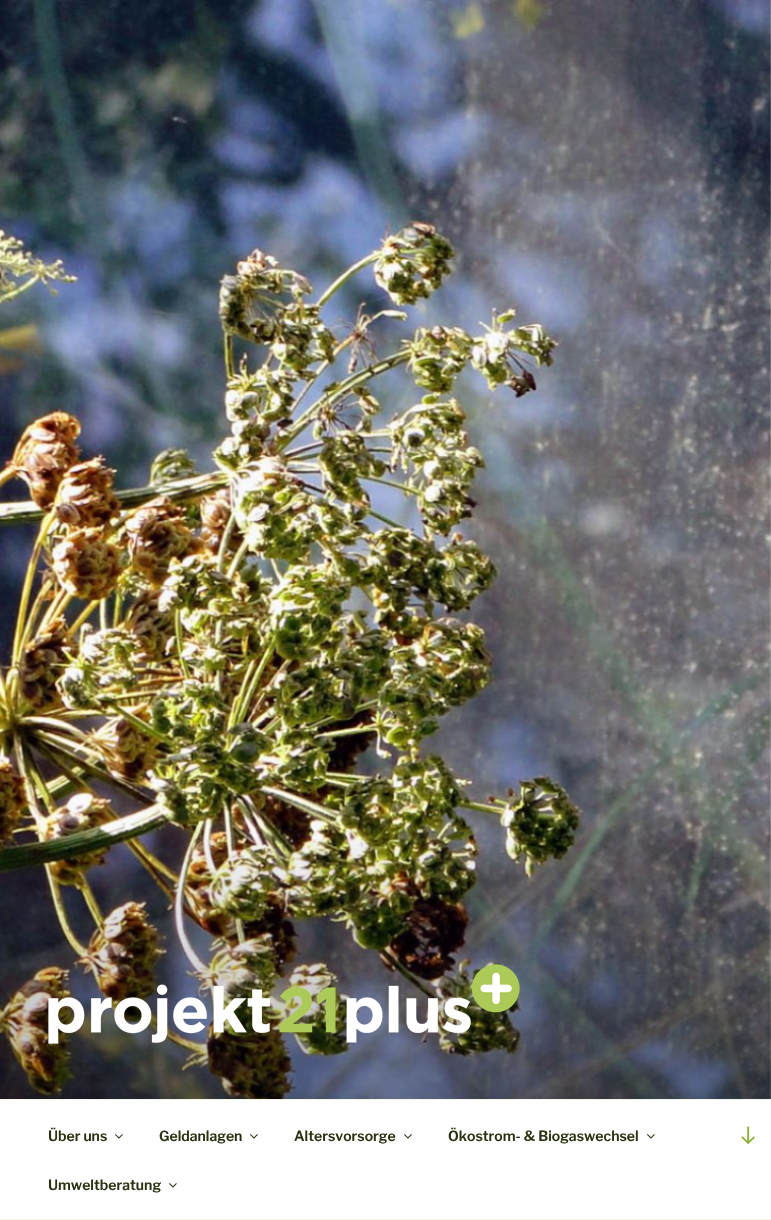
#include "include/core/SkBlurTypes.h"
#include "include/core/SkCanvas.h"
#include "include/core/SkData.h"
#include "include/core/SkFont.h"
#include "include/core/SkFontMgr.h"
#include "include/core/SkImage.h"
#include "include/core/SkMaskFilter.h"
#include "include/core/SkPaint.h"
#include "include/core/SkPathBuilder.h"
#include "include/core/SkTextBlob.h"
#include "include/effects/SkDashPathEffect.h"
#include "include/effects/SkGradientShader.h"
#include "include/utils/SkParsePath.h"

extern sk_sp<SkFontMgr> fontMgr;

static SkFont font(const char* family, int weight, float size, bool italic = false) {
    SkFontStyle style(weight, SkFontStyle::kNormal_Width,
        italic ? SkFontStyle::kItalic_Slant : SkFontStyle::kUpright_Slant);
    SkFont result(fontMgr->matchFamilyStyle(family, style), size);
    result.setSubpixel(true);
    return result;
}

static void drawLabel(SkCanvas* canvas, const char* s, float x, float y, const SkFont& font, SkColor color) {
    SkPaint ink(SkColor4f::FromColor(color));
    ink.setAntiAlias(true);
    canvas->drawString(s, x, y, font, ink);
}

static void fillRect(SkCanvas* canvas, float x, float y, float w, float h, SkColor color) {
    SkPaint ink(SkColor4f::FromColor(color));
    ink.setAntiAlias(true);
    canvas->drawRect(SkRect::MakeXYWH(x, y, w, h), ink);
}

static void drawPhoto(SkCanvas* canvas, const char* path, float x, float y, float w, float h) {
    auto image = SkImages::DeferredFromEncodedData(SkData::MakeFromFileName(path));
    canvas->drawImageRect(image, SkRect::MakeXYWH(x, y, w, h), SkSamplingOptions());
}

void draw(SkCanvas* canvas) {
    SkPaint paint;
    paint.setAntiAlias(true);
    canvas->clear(0xFFFFFFFF);
    drawPhoto(canvas, "assets/img1.png", 0, 0, 771, 1099);
    {
        const SkColor colors[] = {0x00000000, 0x4D000000, 0x4D000000};
        const float stops[] = {0, 0.75f, 1};
        const SkPoint ends[] = {{386, 817}, {386, 1220}};
        paint.setShader(SkGradientShader::MakeLinear(ends, colors, stops, 3, SkTileMode::kClamp));
        paint.setAlpha(255);
    }
    canvas->drawRect(SkRect::MakeXYWH(0, 839, 771, 260), paint);
    drawPhoto(canvas, "assets/img2.png", 48, 964, 472, 80);
    fillRect(canvas, 0, 1099, 771, 1, 0xFFF1F6E4);
    fillRect(canvas, 0, 1219, 771, 1, 0xFFF1F6E4);
    SkFont font1 = font("Libre Franklin", 600, 14);
    drawLabel(canvas, "Über uns", 48, 1141, font1, 0xFF283211);
    drawPhoto(canvas, "assets/img3.png", 115, 1134, 8, 5);
    drawLabel(canvas, "Geldanlagen", 159, 1141, font1, 0xFF283211);
    drawPhoto(canvas, "assets/img3.png", 250, 1134, 8, 5);
    drawLabel(canvas, "Altersvorsorge", 294, 1141, font1, 0xFF283211);
    drawPhoto(canvas, "assets/img3.png", 404, 1134, 8, 5);
    drawLabel(canvas, "Ökostrom- & Biogaswechsel", 448, 1141, font1, 0xFF283211);
    drawPhoto(canvas, "assets/img3.png", 647, 1134, 8, 5);
    drawLabel(canvas, "Umweltberatung", 48, 1190, font1, 0xFF283211);
    drawPhoto(canvas, "assets/img3.png", 169, 1183, 8, 5);
    drawPhoto(canvas, "assets/img4.png", 741, 1126, 14, 18);
}
